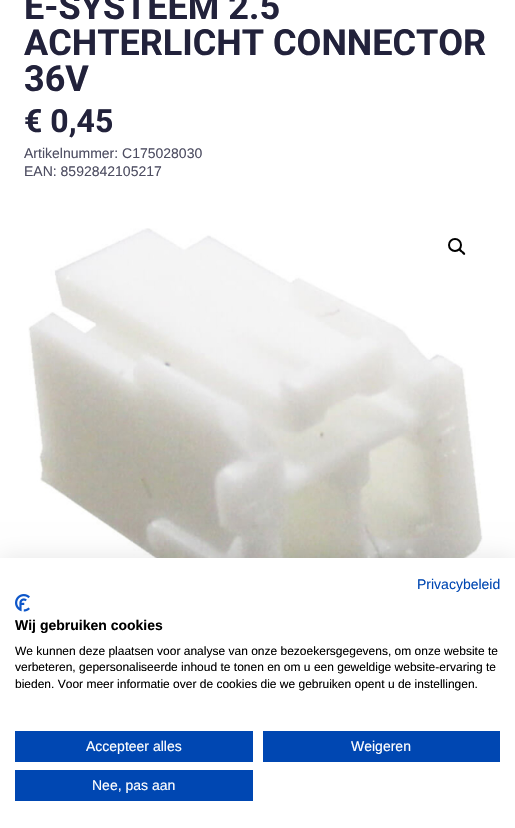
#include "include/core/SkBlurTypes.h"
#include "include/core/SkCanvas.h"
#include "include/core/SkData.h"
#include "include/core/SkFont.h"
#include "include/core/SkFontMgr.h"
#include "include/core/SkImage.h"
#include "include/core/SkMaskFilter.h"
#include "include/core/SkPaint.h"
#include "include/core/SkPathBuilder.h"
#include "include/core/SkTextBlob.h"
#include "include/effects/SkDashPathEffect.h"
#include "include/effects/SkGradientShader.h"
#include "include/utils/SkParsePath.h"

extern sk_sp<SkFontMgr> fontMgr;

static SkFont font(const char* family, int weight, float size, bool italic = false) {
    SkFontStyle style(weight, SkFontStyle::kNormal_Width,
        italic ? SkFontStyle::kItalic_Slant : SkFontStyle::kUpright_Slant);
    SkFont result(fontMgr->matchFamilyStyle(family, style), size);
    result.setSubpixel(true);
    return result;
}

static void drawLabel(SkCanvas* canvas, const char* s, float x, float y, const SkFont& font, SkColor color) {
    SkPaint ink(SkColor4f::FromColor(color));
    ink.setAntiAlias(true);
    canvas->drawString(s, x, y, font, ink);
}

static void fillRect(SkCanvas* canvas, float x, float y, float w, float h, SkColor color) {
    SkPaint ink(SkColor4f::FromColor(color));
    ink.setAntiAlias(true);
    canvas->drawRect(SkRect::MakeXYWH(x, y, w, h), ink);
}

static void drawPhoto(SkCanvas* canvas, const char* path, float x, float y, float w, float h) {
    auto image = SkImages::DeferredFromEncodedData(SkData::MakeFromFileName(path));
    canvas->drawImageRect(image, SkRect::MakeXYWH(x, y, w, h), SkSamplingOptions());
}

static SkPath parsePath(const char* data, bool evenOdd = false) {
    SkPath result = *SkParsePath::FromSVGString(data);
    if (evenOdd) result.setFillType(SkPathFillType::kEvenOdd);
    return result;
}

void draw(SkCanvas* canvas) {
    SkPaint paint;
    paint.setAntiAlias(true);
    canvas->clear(0xFFFFFFFF);
    SkFont font1 = font("Roboto", 700, 36);
    drawLabel(canvas, "E-SYSTEEM 2.5", 24, 19, font1, 0xFF22223B);
    drawLabel(canvas, "ACHTERLICHT CONNECTOR", 24, 55, font1, 0xFF22223B);
    drawLabel(canvas, "36V", 24, 91, font1, 0xFF22223B);
    SkFont font2 = font("Roboto", 700, 32);
    drawLabel(canvas, "€ 0,45", 24, 132, font2, 0xFF22223B);
    SkFont font3 = font("Liberation Sans", 400, 14);
    drawLabel(canvas, "Artikelnummer: C175028030", 24, 158, font3, 0xFF4E4E62);
    drawLabel(canvas, "EAN: 8592842105217", 24, 176, font3, 0xFF4E4E62);
    drawPhoto(canvas, "assets/img1.png", 28, 228, 455, 330);
    paint.setStroke(true);
    paint.setStrokeWidth(2);
    paint.setColor(0xFF000000);
    canvas->drawCircle(455, 245, 6, paint);
    paint.setStroke(false);
    canvas->drawPath(parsePath("M459 249C460.5 248 462 250.5 462.5 251C463.5 251.5 466 253.5 465 254.5C463.5 256 462 253 461.5 252.5C460.5 252 458 250 459 249Z"), paint);
    paint.setColor(0x1A000000);
    paint.setMaskFilter(SkMaskFilter::MakeBlur(kNormal_SkBlurStyle, 12));
    canvas->drawRect(SkRect::MakeXYWH(0, 558, 515, 270), paint);
    paint.setMaskFilter(nullptr);
    fillRect(canvas, 0, 558, 515, 270, 0xFFFFFFFF);
    drawLabel(canvas, "Privacybeleid", 417, 589, font3, 0xFF0047B2);
    drawPhoto(canvas, "assets/img2.png", 15, 594, 15, 18);
    SkFont font4 = font("Liberation Sans", 700, 14);
    drawLabel(canvas, "Wij gebruiken cookies", 15, 630, font4, 0xFF000000);
    SkFont font5 = font("Liberation Sans", 400, 12);
    drawLabel(canvas, "We kunnen deze plaatsen voor analyse van onze bezoekersgegevens, om onze website te", 15, 655, font5, 0xFF000000);
    drawLabel(canvas, "verbeteren, gepersonaliseerde inhoud te tonen en om u een geweldige website-ervaring te", 15, 671, font5, 0xFF000000);
    drawLabel(canvas, "bieden. Voor meer informatie over de cookies die we gebruiken opent u de instellingen.", 15, 688, font5, 0xFF000000);
    fillRect(canvas, 15, 731, 238, 31, 0xFF0047B2);
    drawLabel(canvas, "Accepteer alles", 86, 751, font3, 0xFFFFFFFF);
    fillRect(canvas, 263, 731, 237, 31, 0xFF0047B2);
    drawLabel(canvas, "Weigeren", 351, 751, font3, 0xFFFFFFFF);
    fillRect(canvas, 15, 770, 238, 31, 0xFF0047B2);
    drawLabel(canvas, "Nee, pas aan", 92, 790, font3, 0xFFFFFFFF);
}
